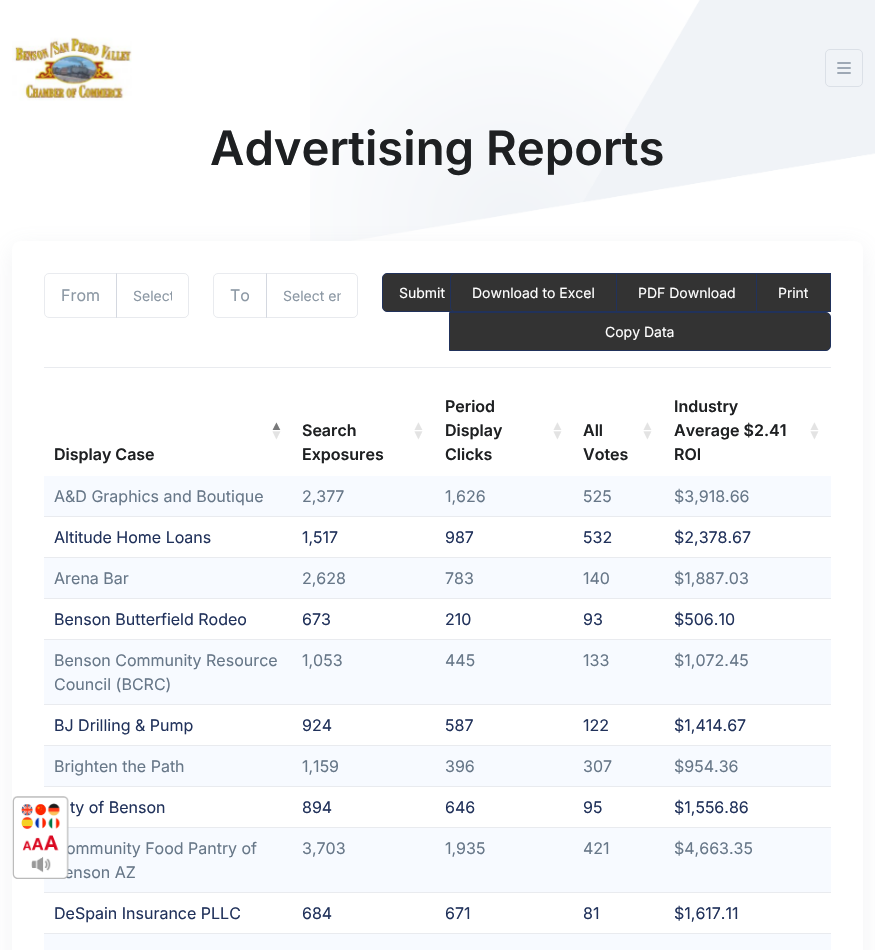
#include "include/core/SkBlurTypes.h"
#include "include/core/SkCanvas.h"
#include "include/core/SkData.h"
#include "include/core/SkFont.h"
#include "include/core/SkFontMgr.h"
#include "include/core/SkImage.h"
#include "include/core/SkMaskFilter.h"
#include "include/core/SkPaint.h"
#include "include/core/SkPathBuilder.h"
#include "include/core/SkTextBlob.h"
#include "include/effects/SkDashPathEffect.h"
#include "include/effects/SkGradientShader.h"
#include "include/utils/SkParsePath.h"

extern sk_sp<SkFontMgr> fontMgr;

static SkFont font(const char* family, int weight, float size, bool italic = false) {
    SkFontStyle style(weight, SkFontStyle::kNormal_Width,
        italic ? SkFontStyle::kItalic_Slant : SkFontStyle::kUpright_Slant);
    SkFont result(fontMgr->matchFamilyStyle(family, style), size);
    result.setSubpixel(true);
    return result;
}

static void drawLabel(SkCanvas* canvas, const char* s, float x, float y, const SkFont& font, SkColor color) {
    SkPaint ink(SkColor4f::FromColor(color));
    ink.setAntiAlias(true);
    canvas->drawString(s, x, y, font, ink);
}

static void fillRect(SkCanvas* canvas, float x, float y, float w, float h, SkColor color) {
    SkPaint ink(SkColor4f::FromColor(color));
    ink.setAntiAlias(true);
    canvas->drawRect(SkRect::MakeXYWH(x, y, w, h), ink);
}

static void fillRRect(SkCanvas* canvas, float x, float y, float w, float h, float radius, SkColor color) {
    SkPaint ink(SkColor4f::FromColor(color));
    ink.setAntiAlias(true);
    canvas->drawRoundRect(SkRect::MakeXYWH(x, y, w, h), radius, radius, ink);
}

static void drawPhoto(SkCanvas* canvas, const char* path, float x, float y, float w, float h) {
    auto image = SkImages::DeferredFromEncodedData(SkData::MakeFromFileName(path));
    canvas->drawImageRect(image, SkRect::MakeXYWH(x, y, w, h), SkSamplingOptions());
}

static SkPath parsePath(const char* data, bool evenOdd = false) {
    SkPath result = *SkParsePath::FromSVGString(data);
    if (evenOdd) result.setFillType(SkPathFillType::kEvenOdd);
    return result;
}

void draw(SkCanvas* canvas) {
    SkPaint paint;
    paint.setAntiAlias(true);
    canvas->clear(0xFFFFFFFF);
    drawPhoto(canvas, "assets/img1.png", 310, 0, 565, 247);
    drawPhoto(canvas, "assets/img2.png", 12, 37, 120, 64);
    paint.setStroke(true);
    paint.setStrokeWidth(1);
    paint.setColor(0xFFDBE0E7);
    canvas->drawRoundRect(SkRect::MakeXYWH(825.5f, 49.5f, 37, 37), 4.5f, 4.5f, paint);
    drawPhoto(canvas, "assets/img3.png", 837, 62, 14, 12);
    paint.setStroke(false);
    paint.setColor(0x1F8C98A4);
    paint.setMaskFilter(SkMaskFilter::MakeBlur(kNormal_SkBlurStyle, 12));
    canvas->drawRoundRect(SkRect::MakeXYWH(12, 247, 851, 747), 8, 8, paint);
    paint.setMaskFilter(nullptr);
    fillRRect(canvas, 12, 241, 851, 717, 8, 0xFFFFFFFF);
    fillRect(canvas, 67, 827, 764, 1, 0xFFE9EBEF);
    fillRect(canvas, 44, 828, 787, 64, 0xFFF7FAFF);
    SkFont font1 = font("Inter", 400, 16);
    drawLabel(canvas, "ommunity Food Pantry of", 66, 854, font1, 0xFF677788);
    drawLabel(canvas, "enson AZ", 64, 878, font1, 0xFF677788);
    drawPhoto(canvas, "assets/img4.png", 12, 796, 57, 83);
    SkFont font2 = font("Inter", 600, 47.25f);
    drawLabel(canvas, "Advertising Reports", 210, 165, font2, 0xFF1E2022);
    paint.setStroke(true);
    paint.setColor(0xFFE9EBEF);
    canvas->drawPath(parsePath("M49 273.5H116.5V317.5H49C46.5 317.5 44.5 315.5 44.5 313V278C44.5 275.5 46.5 273.5 49 273.5Z"), paint);
    drawLabel(canvas, "From", 61, 301, font1, 0xFF8C98A4);
    paint.setColor(0x1A21325B);
    canvas->drawPath(parsePath("M116.5 273.5H184C186.5 273.5 188.5 275.5 188.5 278V313C188.5 315.5 186.5 317.5 184 317.5H116.5Z"), paint);
    canvas->save();
    canvas->clipRect(SkRect::MakeXYWH(133, 287, 39, 17));
    SkFont font3 = font("Inter", 400, 14);
    drawLabel(canvas, "Select", 133, 301, font3, 0xFF8C98A4);
    canvas->restore();
    paint.setColor(0xFFE9EBEF);
    canvas->drawPath(parsePath("M218 273.5H266.5V317.5H218C215.5 317.5 213.5 315.5 213.5 313V278C213.5 275.5 215.5 273.5 218 273.5Z"), paint);
    drawLabel(canvas, "To", 230, 301, font1, 0xFF8C98A4);
    paint.setColor(0x1A21325B);
    canvas->drawPath(parsePath("M266.5 273.5H353C355.5 273.5 357.5 275.5 357.5 278V313C357.5 315.5 355.5 317.5 353 317.5H266.5Z"), paint);
    canvas->save();
    canvas->clipRect(SkRect::MakeXYWH(283, 287, 58, 17));
    drawLabel(canvas, "Select en", 283, 301, font3, 0xFF8C98A4);
    canvas->restore();
    paint.setStroke(false);
    paint.setColor(0xFF333333);
    canvas->drawRoundRect(SkRect::MakeXYWH(382.5f, 273.5f, 79, 38), 4.5f, 4.5f, paint);
    paint.setStroke(true);
    paint.setColor(0xFF21325B);
    canvas->drawRoundRect(SkRect::MakeXYWH(382.5f, 273.5f, 79, 38), 4.5f, 4.5f, paint);
    drawLabel(canvas, "Submit", 399, 298, font3, 0xFFFFFFFF);
    paint.setStroke(false);
    paint.setColor(0xFF333333);
    canvas->drawPath(parsePath("M455 273.5H616.5V311.5H455C452.5 311.5 450.5 309.5 450.5 307V278C450.5 275.5 452.5 273.5 455 273.5Z"), paint);
    paint.setStroke(true);
    paint.setColor(0xFF21325B);
    canvas->drawPath(parsePath("M455 273.5H616.5V311.5H455C452.5 311.5 450.5 309.5 450.5 307V278C450.5 275.5 452.5 273.5 455 273.5Z"), paint);
    drawLabel(canvas, "Download to Excel", 472, 298, font3, 0xFFFFFFFF);
    paint.setStroke(false);
    paint.setColor(0xFF333333);
    canvas->drawRect(SkRect::MakeXYWH(616.5f, 273.5f, 140, 38), paint);
    paint.setStroke(true);
    paint.setColor(0xFF21325B);
    canvas->drawRect(SkRect::MakeXYWH(616.5f, 273.5f, 140, 38), paint);
    drawLabel(canvas, "PDF Download", 638, 298, font3, 0xFFFFFFFF);
    paint.setStroke(false);
    paint.setColor(0xFF333333);
    canvas->drawRect(SkRect::MakeXYWH(756.5f, 273.5f, 74, 38), paint);
    paint.setStroke(true);
    paint.setColor(0xFF21325B);
    canvas->drawRect(SkRect::MakeXYWH(756.5f, 273.5f, 74, 38), paint);
    drawLabel(canvas, "Print", 778, 298, font3, 0xFFFFFFFF);
    paint.setStroke(false);
    paint.setColor(0xFF333333);
    canvas->drawPath(parsePath("M449.5 312.5H826C828.5 312.5 830.5 314.5 830.5 317V346C830.5 348.5 828.5 350.5 826 350.5H449.5Z"), paint);
    paint.setStroke(true);
    paint.setColor(0xFF21325B);
    canvas->drawPath(parsePath("M449.5 312.5H826C828.5 312.5 830.5 314.5 830.5 317V346C830.5 348.5 828.5 350.5 826 350.5H449.5Z"), paint);
    drawLabel(canvas, "Copy Data", 605, 337, font3, 0xFFFFFFFF);
    fillRect(canvas, 44, 367, 787, 1, 0xFFE9EBEF);
    SkFont font4 = font("Liberation Sans", 700, 13);
    drawLabel(canvas, "▲", 270, 430, font4, 0xFF78797A);
    drawLabel(canvas, "▼", 270, 439, font4, 0xFFE3E3E3);
    SkFont font5 = font("Inter", 600, 16);
    drawLabel(canvas, "Display Case", 54, 460, font5, 0xFF1E2022);
    drawLabel(canvas, "Search", 302, 436, font5, 0xFF1E2022);
    drawLabel(canvas, "▲", 412, 430, font4, 0xFFE3E3E3);
    drawLabel(canvas, "▼", 412, 439, font4, 0xFFE3E3E3);
    drawLabel(canvas, "Exposures", 302, 460, font5, 0xFF1E2022);
    drawLabel(canvas, "Period", 445, 412, font5, 0xFF1E2022);
    drawLabel(canvas, "Display", 445, 436, font5, 0xFF1E2022);
    drawLabel(canvas, "▲", 551, 430, font4, 0xFFE3E3E3);
    drawLabel(canvas, "▼", 551, 439, font4, 0xFFE3E3E3);
    drawLabel(canvas, "Clicks", 445, 460, font5, 0xFF1E2022);
    drawLabel(canvas, "All", 583, 436, font5, 0xFF1E2022);
    drawLabel(canvas, "▲", 641, 430, font4, 0xFFE3E3E3);
    drawLabel(canvas, "▼", 641, 439, font4, 0xFFE3E3E3);
    drawLabel(canvas, "Votes", 583, 460, font5, 0xFF1E2022);
    drawLabel(canvas, "Industry", 674, 412, font5, 0xFF1E2022);
    drawLabel(canvas, "Average $2.41", 674, 436, font5, 0xFF1E2022);
    drawLabel(canvas, "▲", 808, 430, font4, 0xFFE3E3E3);
    drawLabel(canvas, "▼", 808, 439, font4, 0xFFE3E3E3);
    drawLabel(canvas, "ROI", 674, 460, font5, 0xFF1E2022);
    fillRect(canvas, 44, 476, 787, 40, 0xFFF7FAFF);
    fillRect(canvas, 44, 516, 787, 1, 0xFFE9EBEF);
    drawLabel(canvas, "A&D Graphics and Boutique", 54, 502, font1, 0xFF677788);
    drawLabel(canvas, "2,377", 302, 502, font1, 0xFF677788);
    drawLabel(canvas, "1,626", 445, 502, font1, 0xFF677788);
    drawLabel(canvas, "525", 583, 502, font1, 0xFF677788);
    drawLabel(canvas, "$3,918.66", 674, 502, font1, 0xFF677788);
    fillRect(canvas, 44, 557, 787, 1, 0xFFE9EBEF);
    drawLabel(canvas, "Altitude Home Loans", 54, 543, font1, 0xFF21325B);
    drawLabel(canvas, "1,517", 302, 543, font1, 0xFF21325B);
    drawLabel(canvas, "987", 445, 543, font1, 0xFF21325B);
    drawLabel(canvas, "532", 583, 543, font1, 0xFF21325B);
    drawLabel(canvas, "$2,378.67", 674, 543, font1, 0xFF21325B);
    fillRect(canvas, 44, 558, 787, 40, 0xFFF7FAFF);
    fillRect(canvas, 44, 598, 787, 1, 0xFFE9EBEF);
    drawLabel(canvas, "Arena Bar", 54, 584, font1, 0xFF677788);
    drawLabel(canvas, "2,628", 302, 584, font1, 0xFF677788);
    drawLabel(canvas, "783", 445, 584, font1, 0xFF677788);
    drawLabel(canvas, "140", 583, 584, font1, 0xFF677788);
    drawLabel(canvas, "$1,887.03", 674, 584, font1, 0xFF677788);
    fillRect(canvas, 44, 639, 787, 1, 0xFFE9EBEF);
    drawLabel(canvas, "Benson Butterfield Rodeo", 54, 625, font1, 0xFF21325B);
    drawLabel(canvas, "673", 302, 625, font1, 0xFF21325B);
    drawLabel(canvas, "210", 445, 625, font1, 0xFF21325B);
    drawLabel(canvas, "93", 583, 625, font1, 0xFF21325B);
    drawLabel(canvas, "$506.10", 674, 625, font1, 0xFF21325B);
    fillRect(canvas, 44, 640, 787, 64, 0xFFF7FAFF);
    fillRect(canvas, 44, 704, 787, 1, 0xFFE9EBEF);
    drawLabel(canvas, "Benson Community Resource", 54, 666, font1, 0xFF677788);
    drawLabel(canvas, "Council (BCRC)", 54, 690, font1, 0xFF677788);
    drawLabel(canvas, "1,053", 302, 666, font1, 0xFF677788);
    drawLabel(canvas, "445", 445, 666, font1, 0xFF677788);
    drawLabel(canvas, "133", 583, 666, font1, 0xFF677788);
    drawLabel(canvas, "$1,072.45", 674, 666, font1, 0xFF677788);
    fillRect(canvas, 44, 745, 787, 1, 0xFFE9EBEF);
    drawLabel(canvas, "BJ Drilling & Pump", 54, 731, font1, 0xFF21325B);
    drawLabel(canvas, "924", 302, 731, font1, 0xFF21325B);
    drawLabel(canvas, "587", 445, 731, font1, 0xFF21325B);
    drawLabel(canvas, "122", 583, 731, font1, 0xFF21325B);
    drawLabel(canvas, "$1,414.67", 674, 731, font1, 0xFF21325B);
    fillRect(canvas, 44, 746, 787, 40, 0xFFF7FAFF);
    fillRect(canvas, 44, 786, 787, 1, 0xFFE9EBEF);
    drawLabel(canvas, "Brighten the Path", 54, 772, font1, 0xFF677788);
    drawLabel(canvas, "1,159", 302, 772, font1, 0xFF677788);
    drawLabel(canvas, "396", 445, 772, font1, 0xFF677788);
    drawLabel(canvas, "307", 583, 772, font1, 0xFF677788);
    drawLabel(canvas, "$954.36", 674, 772, font1, 0xFF677788);
    drawLabel(canvas, "ty of Benson", 70, 813, font1, 0xFF21325B);
    drawLabel(canvas, "894", 302, 813, font1, 0xFF21325B);
    drawLabel(canvas, "646", 445, 813, font1, 0xFF21325B);
    drawLabel(canvas, "95", 583, 813, font1, 0xFF21325B);
    drawLabel(canvas, "$1,556.86", 674, 813, font1, 0xFF21325B);
    fillRect(canvas, 44, 892, 787, 1, 0xFFE9EBEF);
    drawLabel(canvas, "3,703", 302, 854, font1, 0xFF677788);
    drawLabel(canvas, "1,935", 445, 854, font1, 0xFF677788);
    drawLabel(canvas, "421", 583, 854, font1, 0xFF677788);
    drawLabel(canvas, "$4,663.35", 674, 854, font1, 0xFF677788);
    fillRect(canvas, 44, 933, 787, 1, 0xFFE9EBEF);
    drawLabel(canvas, "DeSpain Insurance PLLC", 54, 919, font1, 0xFF21325B);
    drawLabel(canvas, "684", 302, 919, font1, 0xFF21325B);
    drawLabel(canvas, "671", 445, 919, font1, 0xFF21325B);
    drawLabel(canvas, "81", 583, 919, font1, 0xFF21325B);
    drawLabel(canvas, "$1,617.11", 674, 919, font1, 0xFF21325B);
    fillRect(canvas, 44, 934, 787, 16, 0xFFF7FAFF);
}
